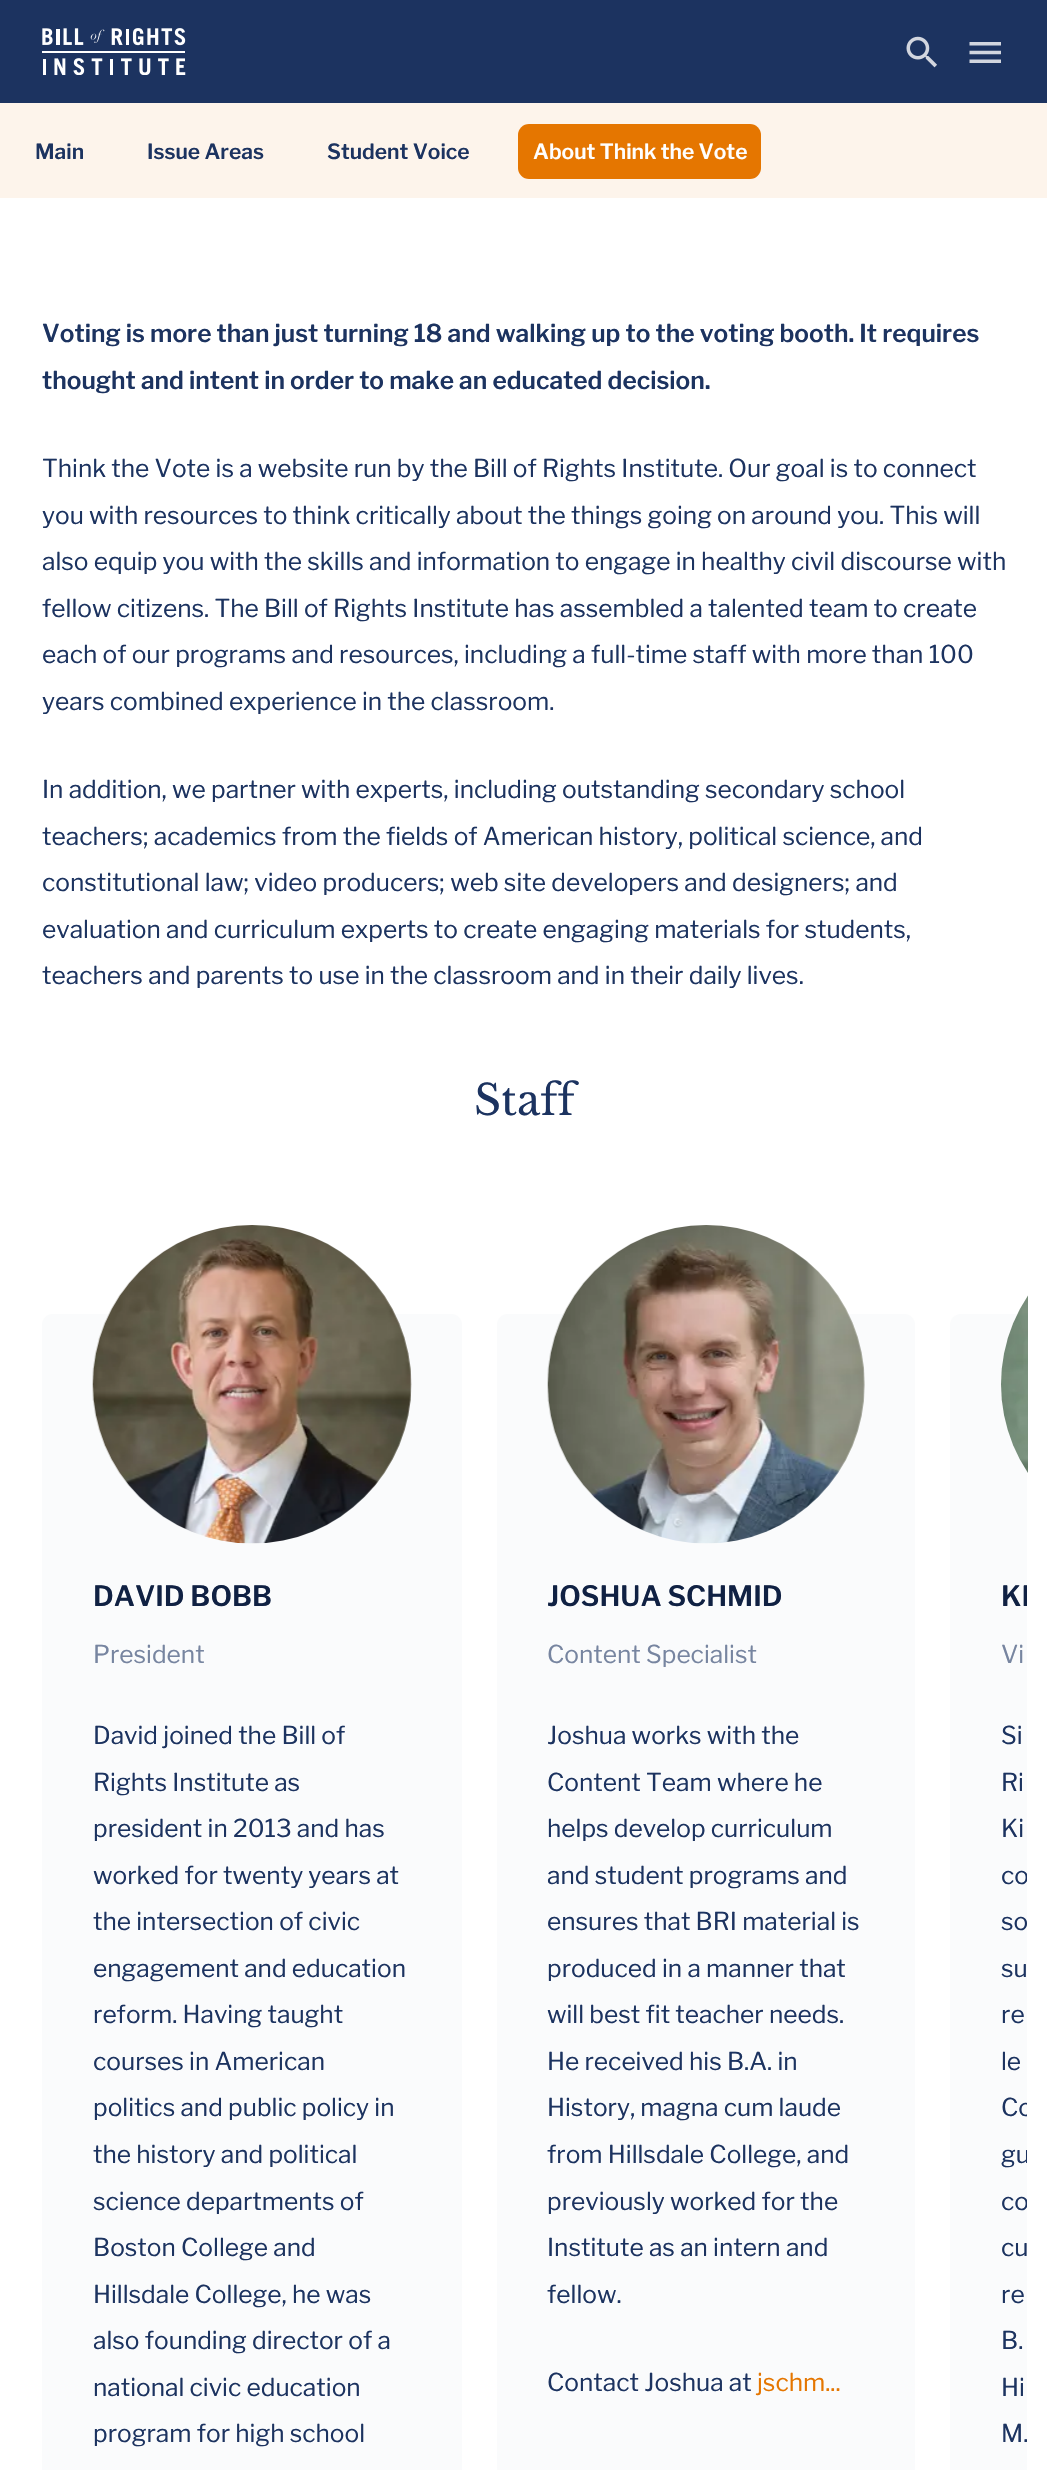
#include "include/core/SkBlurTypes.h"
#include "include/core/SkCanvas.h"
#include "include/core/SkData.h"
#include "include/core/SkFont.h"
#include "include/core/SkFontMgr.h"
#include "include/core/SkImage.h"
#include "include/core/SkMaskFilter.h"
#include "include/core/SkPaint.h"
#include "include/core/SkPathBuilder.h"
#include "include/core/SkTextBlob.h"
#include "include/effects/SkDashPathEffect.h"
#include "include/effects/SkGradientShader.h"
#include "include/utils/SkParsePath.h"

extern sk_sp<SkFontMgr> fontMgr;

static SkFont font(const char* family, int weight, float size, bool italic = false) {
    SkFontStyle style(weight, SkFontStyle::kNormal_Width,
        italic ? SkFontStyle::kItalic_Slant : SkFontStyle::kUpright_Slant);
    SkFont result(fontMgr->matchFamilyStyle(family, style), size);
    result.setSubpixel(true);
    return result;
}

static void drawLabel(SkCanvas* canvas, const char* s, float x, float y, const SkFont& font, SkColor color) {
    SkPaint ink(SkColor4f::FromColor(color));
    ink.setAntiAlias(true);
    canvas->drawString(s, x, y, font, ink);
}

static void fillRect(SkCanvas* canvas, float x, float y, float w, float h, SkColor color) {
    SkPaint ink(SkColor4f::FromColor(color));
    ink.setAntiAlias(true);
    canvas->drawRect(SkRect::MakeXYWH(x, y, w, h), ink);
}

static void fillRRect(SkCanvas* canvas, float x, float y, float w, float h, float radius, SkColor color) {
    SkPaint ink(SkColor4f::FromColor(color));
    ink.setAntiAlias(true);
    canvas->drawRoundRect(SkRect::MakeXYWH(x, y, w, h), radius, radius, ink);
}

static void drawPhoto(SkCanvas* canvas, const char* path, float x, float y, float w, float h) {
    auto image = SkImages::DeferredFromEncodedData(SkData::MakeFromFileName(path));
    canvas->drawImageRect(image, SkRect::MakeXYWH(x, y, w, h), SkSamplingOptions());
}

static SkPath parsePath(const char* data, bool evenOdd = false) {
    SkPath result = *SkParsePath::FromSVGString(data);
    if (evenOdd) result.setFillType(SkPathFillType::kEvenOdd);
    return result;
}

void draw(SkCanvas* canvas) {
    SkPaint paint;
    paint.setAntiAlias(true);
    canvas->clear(0xFFFFFFFF);
    fillRect(canvas, 0, 0, 1047, 103, 0xFF1C3360);
    drawPhoto(canvas, "assets/img1.png", 42, 28, 144, 47);
    drawPhoto(canvas, "assets/img2.png", 906, 36, 31, 32);
    drawPhoto(canvas, "assets/img3.png", 969, 42, 32, 21);
    fillRect(canvas, 0, 103, 1047, 95, 0xFFFDF4EB);
    SkFont font1 = font("Libre Franklin", 600, 21);
    drawLabel(canvas, "Main", 35, 159, font1, 0xFF1C3360);
    drawLabel(canvas, "Issue Areas", 147, 159, font1, 0xFF1C3360);
    drawLabel(canvas, "Student Voice", 327, 159, font1, 0xFF1C3360);
    fillRRect(canvas, 518, 124, 243, 55, 11, 0xFFE57600);
    drawLabel(canvas, "About Think the Vote", 533, 159, font1, 0xFFFFFFFF);
    SkFont font2 = font("Libre Franklin", 600, 24.5f);
    drawLabel(canvas, "Voting is more than just turning 18 and walking up to the voting booth. It requires", 42, 342, font2, 0xFF1C3360);
    drawLabel(canvas, "thought and intent in order to make an educated decision.", 42, 389, font2, 0xFF1C3360);
    SkFont font3 = font("Libre Franklin", 400, 24.5f);
    drawLabel(canvas, "Think the Vote is a website run by the Bill of Rights Institute. Our goal is to connect", 42, 477, font3, 0xFF1C3360);
    drawLabel(canvas, "you with resources to think critically about the things going on around you. This will", 42, 524, font3, 0xFF1C3360);
    drawLabel(canvas, "also equip you with the skills and information to engage in healthy civil discourse with", 42, 570, font3, 0xFF1C3360);
    drawLabel(canvas, "fellow citizens. The Bill of Rights Institute has assembled a talented team to create", 42, 617, font3, 0xFF1C3360);
    drawLabel(canvas, "each of our programs and resources, including a full-time staff with more than 100", 42, 663, font3, 0xFF1C3360);
    drawLabel(canvas, "years combined experience in the classroom.", 42, 710, font3, 0xFF1C3360);
    drawLabel(canvas, "In addition, we partner with experts, including outstanding secondary school", 42, 798, font3, 0xFF1C3360);
    drawLabel(canvas, "teachers; academics from the fields of American history, political science, and", 42, 845, font3, 0xFF1C3360);
    drawLabel(canvas, "constitutional law; video producers; web site developers and designers; and", 42, 891, font3, 0xFF1C3360);
    drawLabel(canvas, "evaluation and curriculum experts to create engaging materials for students,", 42, 938, font3, 0xFF1C3360);
    drawLabel(canvas, "teachers and parents to use in the classroom and in their daily lives.", 42, 984, font3, 0xFF1C3360);
    SkFont font4 = font("Libre Baskerville", 400, 42);
    drawLabel(canvas, "Staff", 474, 1115, font4, 0xFF1C3360);
    fillRRect(canvas, 42, 1314, 420, 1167, 11, 0xFFFAFBFC);
    drawPhoto(canvas, "assets/img4.png", 92, 1225, 320, 319);
    SkFont font5 = font("Libre Franklin", 600, 28);
    drawLabel(canvas, "DAVID BOBB", 93, 1606, font5, 0xFF102143);
    drawLabel(canvas, "President", 93, 1663, font3, 0xFF7785A0);
    drawLabel(canvas, "David joined the Bill of", 93, 1744, font3, 0xFF1C3360);
    drawLabel(canvas, "Rights Institute as", 93, 1791, font3, 0xFF1C3360);
    drawLabel(canvas, "president in 2013 and has", 93, 1837, font3, 0xFF1C3360);
    drawLabel(canvas, "worked for twenty years at", 93, 1884, font3, 0xFF1C3360);
    drawLabel(canvas, "the intersection of civic", 93, 1930, font3, 0xFF1C3360);
    drawLabel(canvas, "engagement and education", 93, 1977, font3, 0xFF1C3360);
    drawLabel(canvas, "reform. Having taught", 93, 2023, font3, 0xFF1C3360);
    drawLabel(canvas, "courses in American", 93, 2070, font3, 0xFF1C3360);
    drawLabel(canvas, "politics and public policy in", 93, 2116, font3, 0xFF1C3360);
    drawLabel(canvas, "the history and political", 93, 2163, font3, 0xFF1C3360);
    drawLabel(canvas, "science departments of", 93, 2210, font3, 0xFF1C3360);
    drawLabel(canvas, "Boston College and", 93, 2256, font3, 0xFF1C3360);
    drawLabel(canvas, "Hillsdale College, he was", 93, 2303, font3, 0xFF1C3360);
    drawLabel(canvas, "also founding director of a", 93, 2349, font3, 0xFF1C3360);
    drawLabel(canvas, "national civic education", 93, 2396, font3, 0xFF1C3360);
    drawLabel(canvas, "program for high school", 93, 2442, font3, 0xFF1C3360);
    fillRRect(canvas, 497, 1314, 418, 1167, 11, 0xFFFAFBFC);
    drawPhoto(canvas, "assets/img5.png", 547, 1225, 318, 319);
    drawLabel(canvas, "JOSHUA SCHMID", 547, 1606, font5, 0xFF102143);
    drawLabel(canvas, "Content Specialist", 547, 1663, font3, 0xFF7785A0);
    drawLabel(canvas, "Joshua works with the", 547, 1744, font3, 0xFF1C3360);
    drawLabel(canvas, "Content Team where he", 547, 1791, font3, 0xFF1C3360);
    drawLabel(canvas, "helps develop curriculum", 547, 1837, font3, 0xFF1C3360);
    drawLabel(canvas, "and student programs and", 547, 1884, font3, 0xFF1C3360);
    drawLabel(canvas, "ensures that BRI material is", 547, 1930, font3, 0xFF1C3360);
    drawLabel(canvas, "produced in a manner that", 547, 1977, font3, 0xFF1C3360);
    drawLabel(canvas, "will best fit teacher needs.", 547, 2023, font3, 0xFF1C3360);
    drawLabel(canvas, "He received his B.A. in", 547, 2070, font3, 0xFF1C3360);
    drawLabel(canvas, "History, magna cum laude", 547, 2116, font3, 0xFF1C3360);
    drawLabel(canvas, "from Hillsdale College, and", 547, 2163, font3, 0xFF1C3360);
    drawLabel(canvas, "previously worked for the", 547, 2210, font3, 0xFF1C3360);
    drawLabel(canvas, "Institute as an intern and", 547, 2256, font3, 0xFF1C3360);
    drawLabel(canvas, "fellow.", 547, 2303, font3, 0xFF1C3360);
    drawLabel(canvas, "Contact Joshua at", 547, 2391, font3, 0xFF1C3360);
    drawLabel(canvas, "jschm...", 757, 2391, font3, 0xFFE57600);
    paint.setColor(0xFFFAFBFC);
    canvas->drawPath(parsePath("M961 1314H1027V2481H961C955 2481 950 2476 950 2470V1325C950 1319 955 1314 961 1314Z"), paint);
    drawPhoto(canvas, "assets/img6.png", 1001, 1295, 27, 178);
    canvas->save();
    canvas->clipRect(SkRect::MakeXYWH(21, 1223, 1006, 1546));
    drawLabel(canvas, "KI", 1001, 1606, font5, 0xFF102143);
    canvas->restore();
    drawLabel(canvas, "Vi", 1001, 1663, font3, 0xFF7785A0);
    drawLabel(canvas, "Si", 1001, 1744, font3, 0xFF1C3360);
    drawLabel(canvas, "Ri", 1001, 1791, font3, 0xFF1C3360);
    drawLabel(canvas, "Ki", 1001, 1837, font3, 0xFF1C3360);
    canvas->save();
    canvas->clipRect(SkRect::MakeXYWH(21, 1223, 1006, 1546));
    drawLabel(canvas, "co", 1001, 1884, font3, 0xFF1C3360);
    drawLabel(canvas, "so", 1001, 1930, font3, 0xFF1C3360);
    canvas->restore();
    drawLabel(canvas, "su", 1001, 1977, font3, 0xFF1C3360);
    drawLabel(canvas, "re", 1001, 2023, font3, 0xFF1C3360);
    drawLabel(canvas, "le", 1001, 2070, font3, 0xFF1C3360);
    canvas->save();
    canvas->clipRect(SkRect::MakeXYWH(21, 1223, 1006, 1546));
    drawLabel(canvas, "Co", 1001, 2116, font3, 0xFF1C3360);
    drawLabel(canvas, "gu", 1001, 2163, font3, 0xFF1C3360);
    drawLabel(canvas, "co", 1001, 2210, font3, 0xFF1C3360);
    canvas->restore();
    drawLabel(canvas, "cu", 1001, 2256, font3, 0xFF1C3360);
    drawLabel(canvas, "re", 1001, 2303, font3, 0xFF1C3360);
    drawLabel(canvas, "B.", 1001, 2349, font3, 0xFF1C3360);
    drawLabel(canvas, "Hi", 1001, 2396, font3, 0xFF1C3360);
    canvas->save();
    canvas->clipRect(SkRect::MakeXYWH(21, 1223, 1006, 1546));
    drawLabel(canvas, "M.", 1001, 2442, font3, 0xFF1C3360);
    canvas->restore();
}
